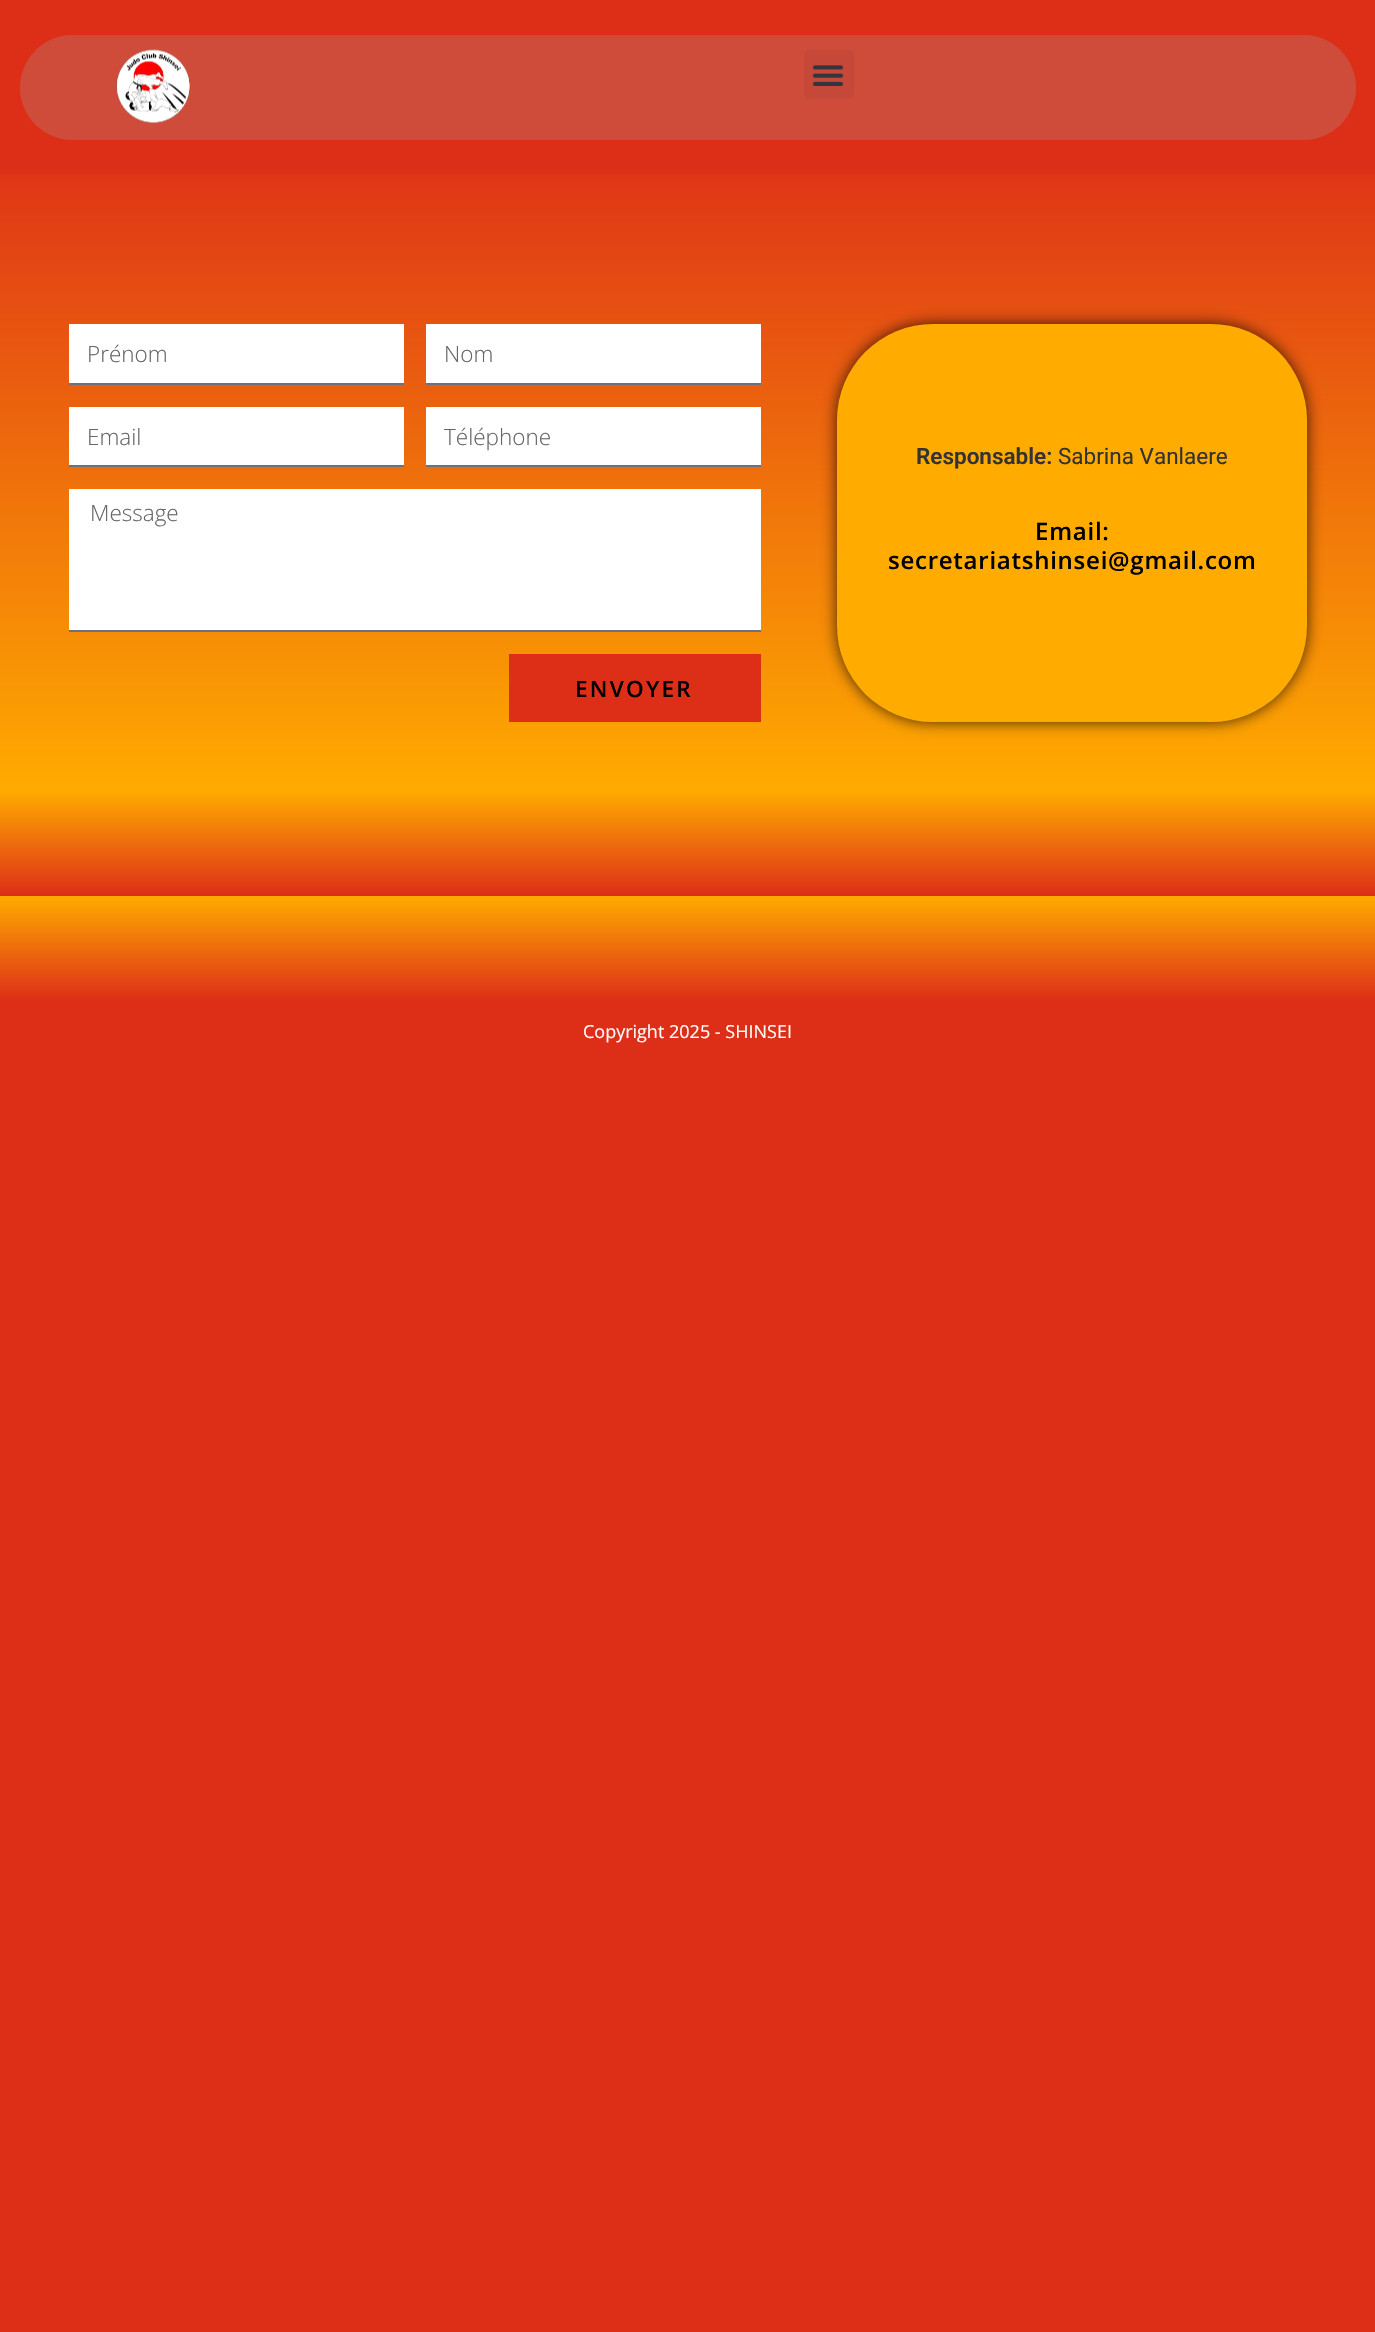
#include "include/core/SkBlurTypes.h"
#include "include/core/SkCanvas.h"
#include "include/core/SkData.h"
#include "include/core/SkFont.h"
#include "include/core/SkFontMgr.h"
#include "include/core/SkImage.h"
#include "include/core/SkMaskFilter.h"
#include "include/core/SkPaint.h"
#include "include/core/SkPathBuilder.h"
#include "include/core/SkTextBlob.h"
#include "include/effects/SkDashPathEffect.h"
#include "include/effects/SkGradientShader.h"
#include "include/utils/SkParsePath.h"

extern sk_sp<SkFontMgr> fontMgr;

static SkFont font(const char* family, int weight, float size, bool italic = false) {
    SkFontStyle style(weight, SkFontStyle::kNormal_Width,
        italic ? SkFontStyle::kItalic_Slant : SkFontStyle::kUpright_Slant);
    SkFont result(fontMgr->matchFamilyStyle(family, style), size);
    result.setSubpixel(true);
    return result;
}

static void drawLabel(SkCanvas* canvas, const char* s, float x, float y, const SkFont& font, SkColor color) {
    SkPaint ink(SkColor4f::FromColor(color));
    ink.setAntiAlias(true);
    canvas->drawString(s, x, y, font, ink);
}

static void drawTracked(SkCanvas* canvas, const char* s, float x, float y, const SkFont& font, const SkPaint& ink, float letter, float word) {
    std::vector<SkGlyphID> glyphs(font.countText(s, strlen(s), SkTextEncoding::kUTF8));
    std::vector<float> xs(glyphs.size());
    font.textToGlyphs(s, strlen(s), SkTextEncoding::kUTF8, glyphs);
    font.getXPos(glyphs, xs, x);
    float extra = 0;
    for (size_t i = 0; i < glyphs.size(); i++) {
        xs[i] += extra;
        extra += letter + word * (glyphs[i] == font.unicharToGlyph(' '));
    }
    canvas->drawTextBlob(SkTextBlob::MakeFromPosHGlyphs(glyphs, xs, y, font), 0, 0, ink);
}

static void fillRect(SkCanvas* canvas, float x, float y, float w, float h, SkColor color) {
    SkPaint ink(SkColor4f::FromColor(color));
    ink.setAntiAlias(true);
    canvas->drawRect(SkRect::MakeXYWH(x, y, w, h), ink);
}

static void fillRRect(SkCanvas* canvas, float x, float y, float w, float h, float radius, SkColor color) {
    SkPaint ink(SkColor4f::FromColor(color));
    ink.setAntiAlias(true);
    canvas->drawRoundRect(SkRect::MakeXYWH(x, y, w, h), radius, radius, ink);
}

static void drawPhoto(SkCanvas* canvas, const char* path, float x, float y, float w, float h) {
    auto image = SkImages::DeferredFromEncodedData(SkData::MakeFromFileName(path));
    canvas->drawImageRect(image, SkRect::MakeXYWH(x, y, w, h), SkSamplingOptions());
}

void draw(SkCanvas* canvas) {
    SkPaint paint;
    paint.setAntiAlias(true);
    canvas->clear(0xFFDD2E18);
    fillRRect(canvas, 20, 35, 1336, 105, 52.5f, 0xFFCF4C3B);
    drawPhoto(canvas, "assets/img1.png", 116, 49, 74, 75);
    fillRRect(canvas, 804, 50, 50, 49, 5, 0xFFC54838);
    drawPhoto(canvas, "assets/img2.png", 812, 65, 32, 21);
    {
        const SkColor colors[] = {0xFFDD2E18, 0xFFFFAB00};
        const float stops[] = {0, 1};
        const SkPoint ends[] = {{688, 129}, {688, 791}};
        paint.setShader(SkGradientShader::MakeLinear(ends, colors, stops, 2, SkTileMode::kClamp));
        paint.setAlpha(255);
    }
    canvas->drawRect(SkRect::MakeXYWH(0, 174, 1375, 617), paint);
    fillRect(canvas, 69, 324, 335, 59, 0xFFFFFFFF);
    fillRect(canvas, 69, 383, 335, 2, 0xFF69727D);
    SkFont font1 = font("Open Sans", 300, 22.5f);
    drawLabel(canvas, "Prénom", 87, 362, font1, 0xFF666666);
    fillRect(canvas, 426, 324, 335, 59, 0xFFFFFFFF);
    fillRect(canvas, 426, 383, 335, 2, 0xFF69727D);
    drawLabel(canvas, "Nom", 444, 362, font1, 0xFF666666);
    fillRect(canvas, 69, 407, 335, 58, 0xFFFFFFFF);
    fillRect(canvas, 69, 465, 335, 2, 0xFF69727D);
    drawLabel(canvas, "Email", 87, 445, font1, 0xFF666666);
    fillRect(canvas, 426, 407, 335, 58, 0xFFFFFFFF);
    fillRect(canvas, 426, 465, 335, 2, 0xFF69727D);
    drawLabel(canvas, "Téléphone", 444, 445, font1, 0xFF666666);
    fillRect(canvas, 69, 489, 692, 141, 0xFFFFFFFF);
    fillRect(canvas, 69, 630, 692, 2, 0xFF69727D);
    drawLabel(canvas, "Message", 90, 521, font1, 0xFF666666);
    fillRect(canvas, 509, 654, 252, 68, 0xFFDD2E18);
    SkFont font2 = font("Open Sans", 600, 22.5f);
    paint.setShader(nullptr);
    paint.setColor(0xFF000000);
    drawTracked(canvas, "ENVOYER", 575, 697, font2, paint, 2.25f, 0);
    paint.setColor(0xBD000000);
    paint.setMaskFilter(SkMaskFilter::MakeBlur(kNormal_SkBlurStyle, 7.5f));
    canvas->drawRoundRect(SkRect::MakeXYWH(837, 324, 470, 398), 96, 96, paint);
    paint.setMaskFilter(nullptr);
    fillRRect(canvas, 837, 324, 470, 398, 96, 0xFFFFAB00);
    SkFont font3 = font("Roboto", 600, 22.5f);
    drawLabel(canvas, "Responsable:", 916, 464, font3, 0xFF333333);
    SkFont font4 = font("Roboto", 400, 22.5f);
    drawLabel(canvas, "Sabrina Vanlaere", 1058, 464, font4, 0xFF333333);
    SkFont font5 = font("Open Sans", 600, 24);
    paint.setColor(0xFF000000);
    drawTracked(canvas, "Email:", 1035, 540, font5, paint, 0.75f, 0);
    drawTracked(canvas, "secretariatshinsei@gmail.com", 888, 569, font5, paint, 0.75f, 0);
    {
        const SkColor colors[] = {0xFFFFAB00, 0xFFDD2E18};
        const float stops[] = {0, 1};
        const SkPoint ends[] = {{688, 791}, {688, 896}};
        paint.setShader(SkGradientShader::MakeLinear(ends, colors, stops, 2, SkTileMode::kClamp));
        paint.setAlpha(255);
    }
    canvas->drawRect(SkRect::MakeXYWH(0, 791, 1375, 103), paint);
    {
        const SkColor colors[] = {0xFFFFAB00, 0xFFDD2E18};
        const float stops[] = {0, 1};
        const SkPoint ends[] = {{688, 896}, {688, 1001}};
        paint.setShader(SkGradientShader::MakeLinear(ends, colors, stops, 2, SkTileMode::kClamp));
        paint.setAlpha(255);
    }
    canvas->drawRect(SkRect::MakeXYWH(0, 896, 1375, 103), paint);
    SkFont font6 = font("Open Sans", 400, 18);
    drawLabel(canvas, "Copyright 2025 - SHINSEI", 583, 1038, font6, 0xFFFFFFFF);
}
